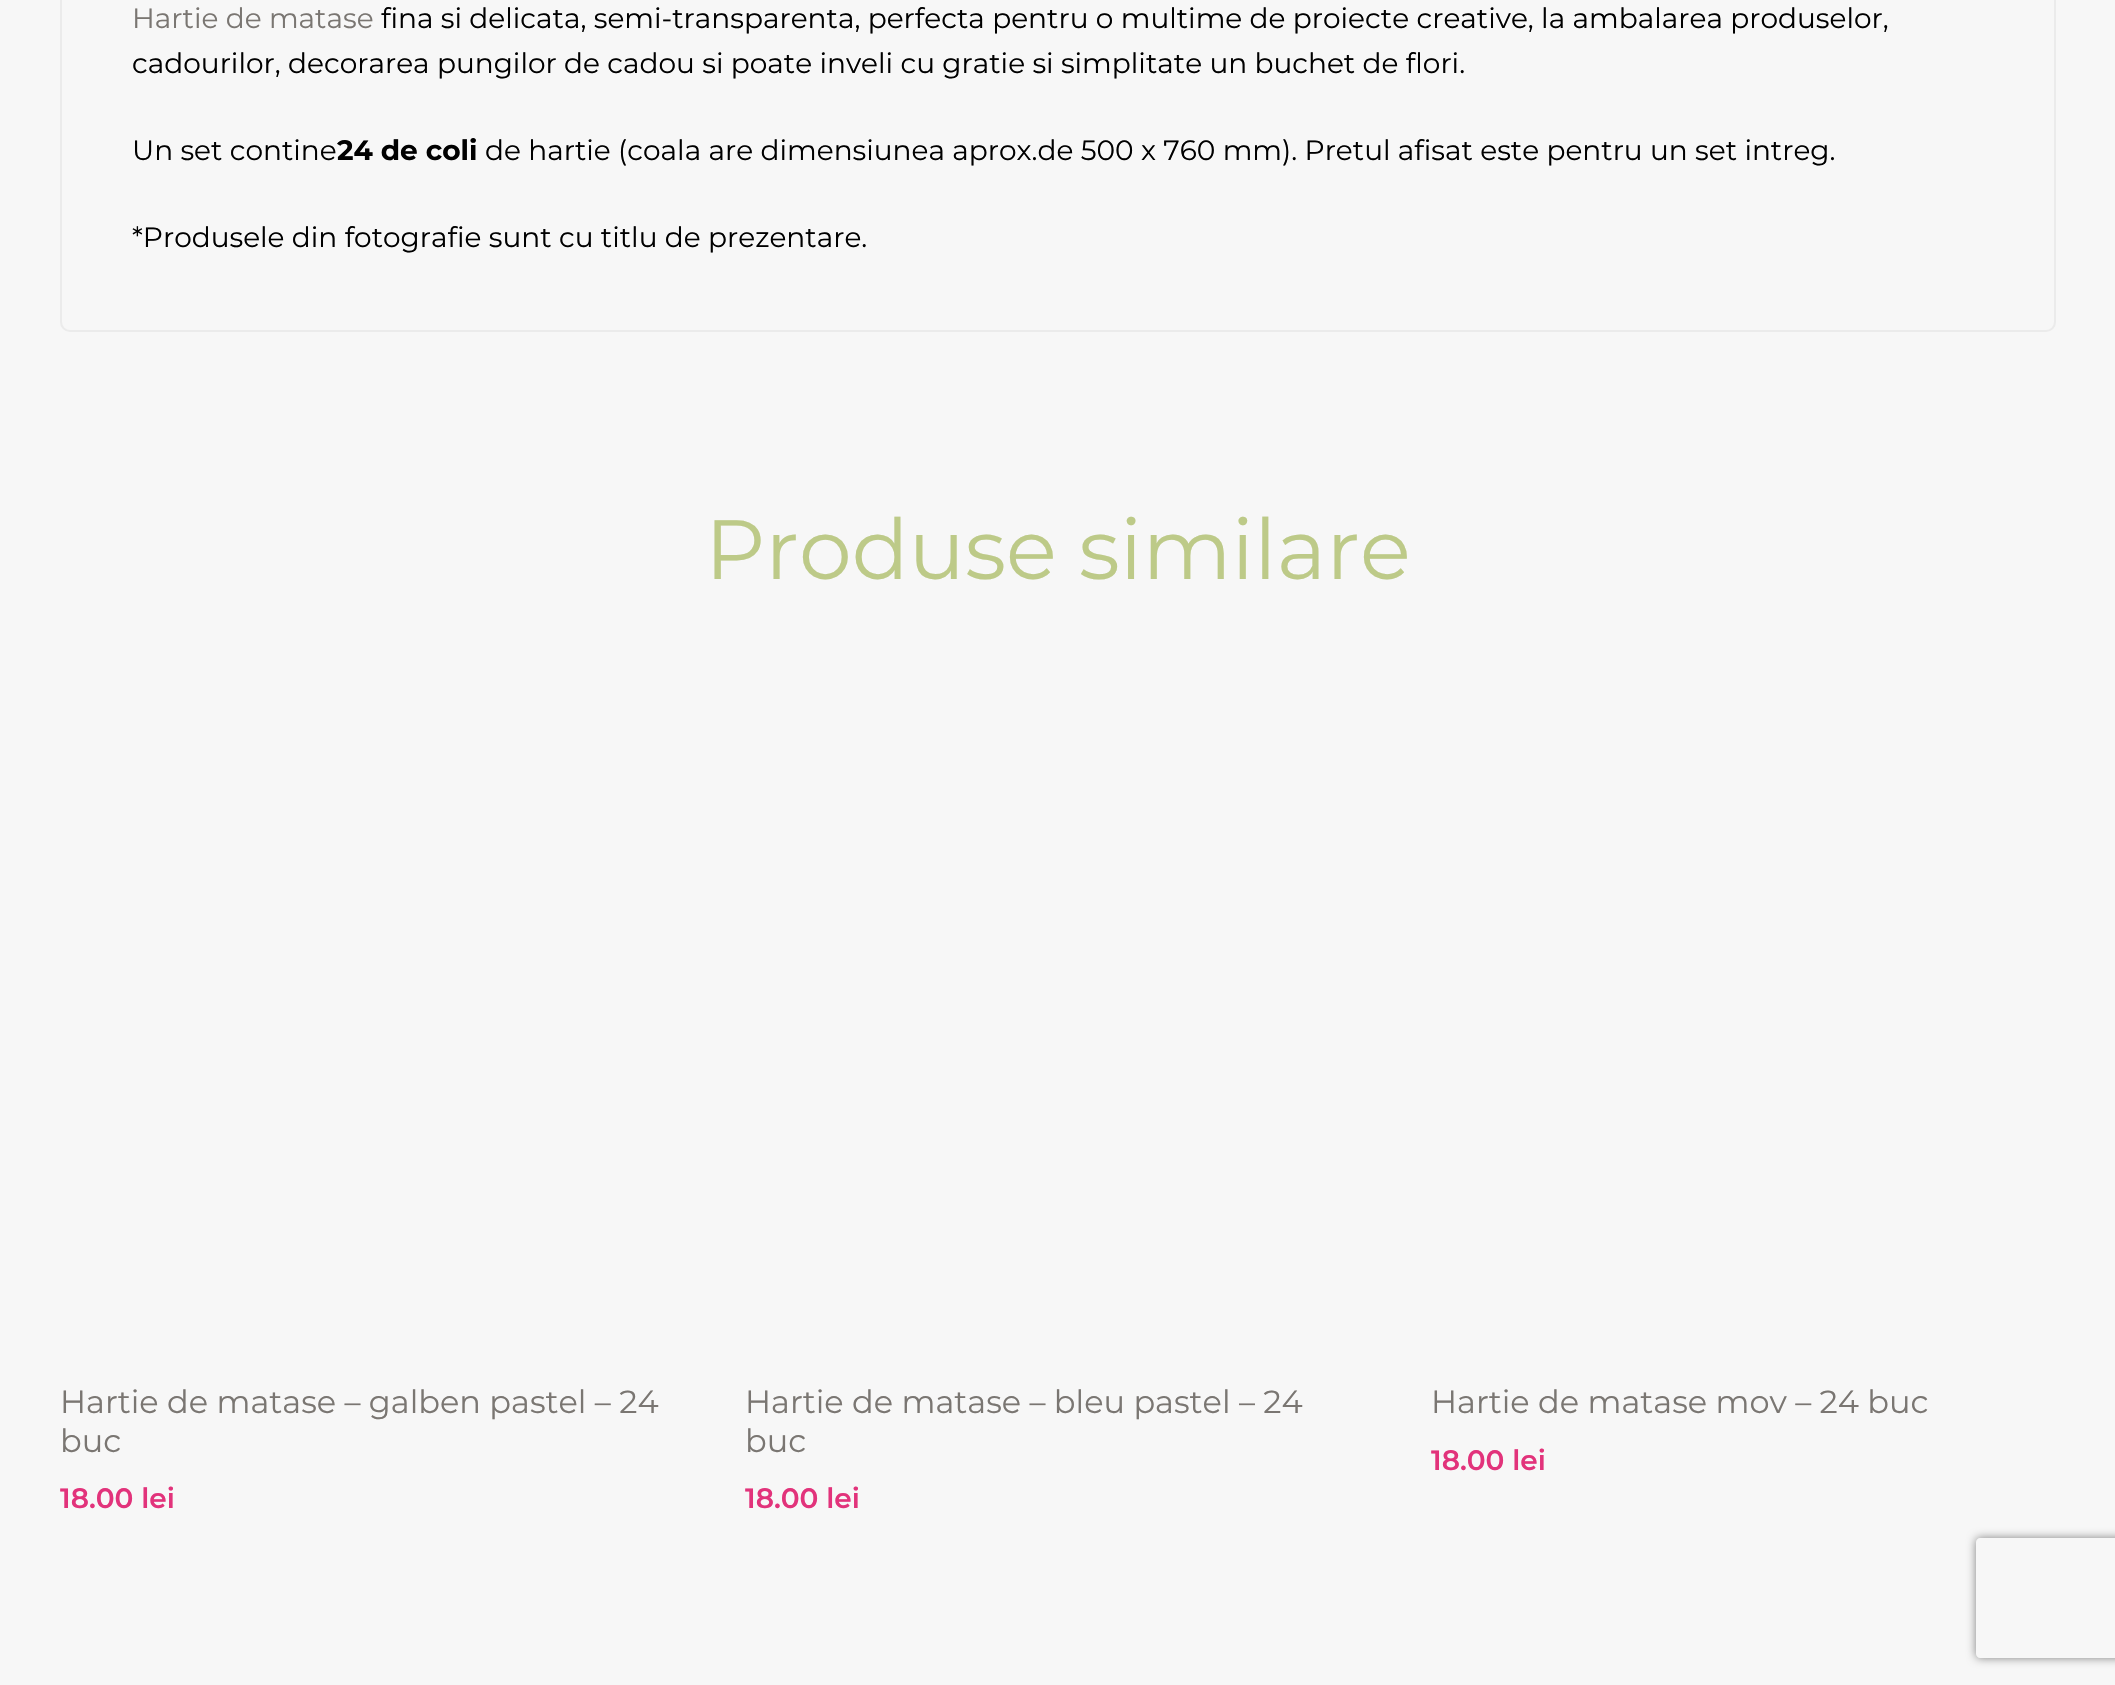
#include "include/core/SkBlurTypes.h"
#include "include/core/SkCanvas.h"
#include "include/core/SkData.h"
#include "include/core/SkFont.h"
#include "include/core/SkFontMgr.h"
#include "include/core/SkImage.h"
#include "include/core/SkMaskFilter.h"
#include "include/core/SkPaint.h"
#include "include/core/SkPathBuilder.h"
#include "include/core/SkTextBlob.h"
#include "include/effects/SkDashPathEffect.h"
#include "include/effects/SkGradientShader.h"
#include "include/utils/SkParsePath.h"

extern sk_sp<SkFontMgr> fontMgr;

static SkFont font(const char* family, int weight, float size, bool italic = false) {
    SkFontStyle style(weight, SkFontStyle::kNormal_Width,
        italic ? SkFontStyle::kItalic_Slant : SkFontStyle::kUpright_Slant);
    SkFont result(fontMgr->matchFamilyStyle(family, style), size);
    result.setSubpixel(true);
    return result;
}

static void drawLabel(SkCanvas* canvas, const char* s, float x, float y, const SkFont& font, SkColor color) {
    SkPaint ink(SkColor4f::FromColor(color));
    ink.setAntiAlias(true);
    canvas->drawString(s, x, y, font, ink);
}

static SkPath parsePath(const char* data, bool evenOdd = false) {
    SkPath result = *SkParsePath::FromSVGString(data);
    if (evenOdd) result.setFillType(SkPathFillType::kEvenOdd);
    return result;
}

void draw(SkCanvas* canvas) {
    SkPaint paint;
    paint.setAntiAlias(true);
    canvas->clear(0xFFF7F7F7);
    paint.setStroke(true);
    paint.setStrokeWidth(2);
    paint.setColor(0xFFEBEBEB);
    canvas->drawRoundRect(SkRect::MakeXYWH(61, -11, 1994, 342), 9, 9, paint);
    SkFont font1 = font("Montserrat", 400, 28);
    drawLabel(canvas, "Hartie de matase", 132, 28, font1, 0xFF7A7672);
    drawLabel(canvas, "fina si delicata, semi-transparenta, perfecta pentru o multime de proiecte creative, la ambalarea produselor,", 381, 28, font1, 0xFF000000);
    drawLabel(canvas, "cadourilor, decorarea pungilor de cadou si poate inveli cu gratie si simplitate un buchet de flori.", 132, 73, font1, 0xFF000000);
    drawLabel(canvas, "Un set contine", 132, 160, font1, 0xFF000000);
    SkFont font2 = font("Montserrat", 700, 28);
    drawLabel(canvas, "24 de coli", 337, 160, font2, 0xFF000000);
    drawLabel(canvas, "de hartie (coala are dimensiunea aprox.de 500 x 760 mm). Pretul afisat este pentru un set intreg.", 485, 160, font1, 0xFF000000);
    drawLabel(canvas, "*Produsele din fotografie sunt cu titlu de prezentare.", 132, 247, font1, 0xFF000000);
    SkFont font3 = font("Montserrat", 400, 84);
    drawLabel(canvas, "Produse similare", 705, 579, font3, 0xFFBDCA88);
    SkFont font4 = font("Montserrat", 400, 32);
    drawLabel(canvas, "Hartie de matase – galben pastel – 24", 60, 1413, font4, 0xFF7A7672);
    drawLabel(canvas, "buc", 60, 1452, font4, 0xFF7A7672);
    SkFont font5 = font("Montserrat", 600, 28);
    drawLabel(canvas, "18.00 lei", 60, 1508, font5, 0xFFE2337B);
    drawLabel(canvas, "Hartie de matase – bleu pastel – 24", 745, 1413, font4, 0xFF7A7672);
    drawLabel(canvas, "buc", 745, 1452, font4, 0xFF7A7672);
    drawLabel(canvas, "18.00 lei", 745, 1508, font5, 0xFFE2337B);
    drawLabel(canvas, "Hartie de matase mov – 24 buc", 1431, 1413, font4, 0xFF7A7672);
    drawLabel(canvas, "18.00 lei", 1431, 1470, font5, 0xFFE2337B);
    canvas->save();
    canvas->clipPath(parsePath("M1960 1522H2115V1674H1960ZM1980 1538H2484C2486 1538 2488 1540 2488 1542V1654C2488 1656 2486 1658 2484 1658H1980C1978 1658 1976 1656 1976 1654V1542C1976 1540 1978 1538 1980 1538Z", true), true);
    paint.setStroke(false);
    paint.setColor(0xFF808080);
    paint.setMaskFilter(SkMaskFilter::MakeBlur(kNormal_SkBlurStyle, 5));
    canvas->drawRoundRect(SkRect::MakeXYWH(1976, 1538, 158, 120), 4, 4, paint);
    paint.setMaskFilter(nullptr);
    canvas->restore();
}
